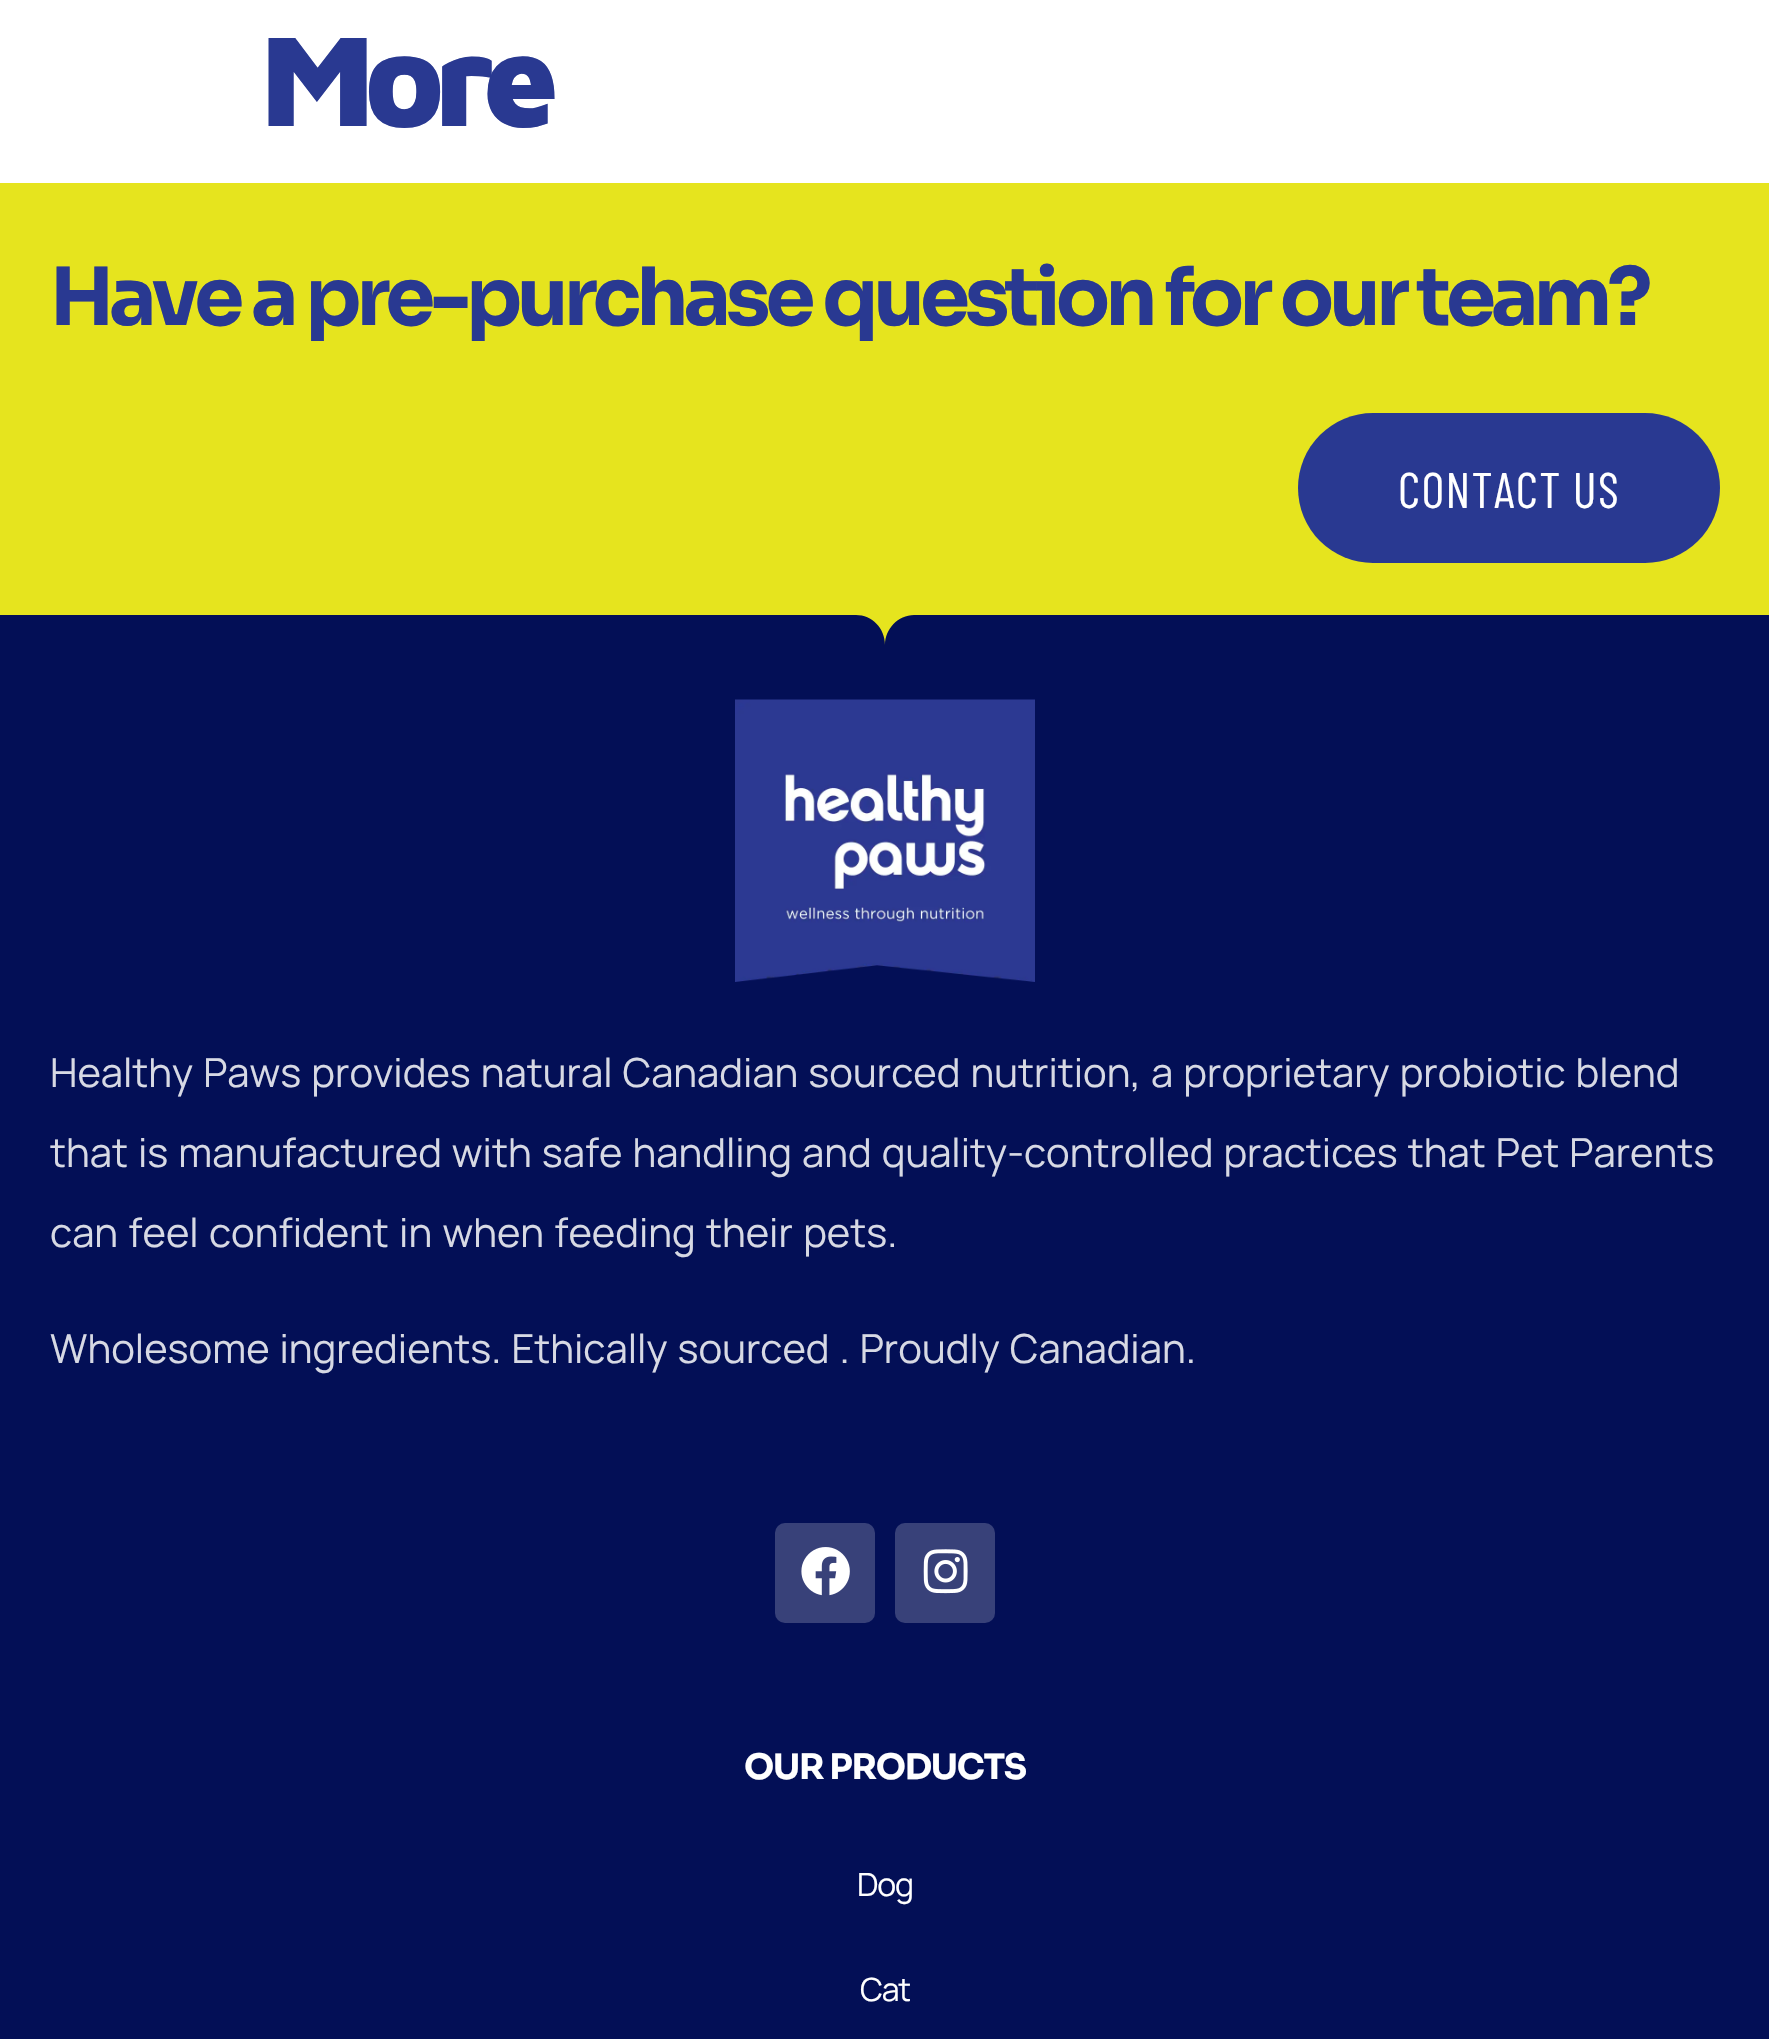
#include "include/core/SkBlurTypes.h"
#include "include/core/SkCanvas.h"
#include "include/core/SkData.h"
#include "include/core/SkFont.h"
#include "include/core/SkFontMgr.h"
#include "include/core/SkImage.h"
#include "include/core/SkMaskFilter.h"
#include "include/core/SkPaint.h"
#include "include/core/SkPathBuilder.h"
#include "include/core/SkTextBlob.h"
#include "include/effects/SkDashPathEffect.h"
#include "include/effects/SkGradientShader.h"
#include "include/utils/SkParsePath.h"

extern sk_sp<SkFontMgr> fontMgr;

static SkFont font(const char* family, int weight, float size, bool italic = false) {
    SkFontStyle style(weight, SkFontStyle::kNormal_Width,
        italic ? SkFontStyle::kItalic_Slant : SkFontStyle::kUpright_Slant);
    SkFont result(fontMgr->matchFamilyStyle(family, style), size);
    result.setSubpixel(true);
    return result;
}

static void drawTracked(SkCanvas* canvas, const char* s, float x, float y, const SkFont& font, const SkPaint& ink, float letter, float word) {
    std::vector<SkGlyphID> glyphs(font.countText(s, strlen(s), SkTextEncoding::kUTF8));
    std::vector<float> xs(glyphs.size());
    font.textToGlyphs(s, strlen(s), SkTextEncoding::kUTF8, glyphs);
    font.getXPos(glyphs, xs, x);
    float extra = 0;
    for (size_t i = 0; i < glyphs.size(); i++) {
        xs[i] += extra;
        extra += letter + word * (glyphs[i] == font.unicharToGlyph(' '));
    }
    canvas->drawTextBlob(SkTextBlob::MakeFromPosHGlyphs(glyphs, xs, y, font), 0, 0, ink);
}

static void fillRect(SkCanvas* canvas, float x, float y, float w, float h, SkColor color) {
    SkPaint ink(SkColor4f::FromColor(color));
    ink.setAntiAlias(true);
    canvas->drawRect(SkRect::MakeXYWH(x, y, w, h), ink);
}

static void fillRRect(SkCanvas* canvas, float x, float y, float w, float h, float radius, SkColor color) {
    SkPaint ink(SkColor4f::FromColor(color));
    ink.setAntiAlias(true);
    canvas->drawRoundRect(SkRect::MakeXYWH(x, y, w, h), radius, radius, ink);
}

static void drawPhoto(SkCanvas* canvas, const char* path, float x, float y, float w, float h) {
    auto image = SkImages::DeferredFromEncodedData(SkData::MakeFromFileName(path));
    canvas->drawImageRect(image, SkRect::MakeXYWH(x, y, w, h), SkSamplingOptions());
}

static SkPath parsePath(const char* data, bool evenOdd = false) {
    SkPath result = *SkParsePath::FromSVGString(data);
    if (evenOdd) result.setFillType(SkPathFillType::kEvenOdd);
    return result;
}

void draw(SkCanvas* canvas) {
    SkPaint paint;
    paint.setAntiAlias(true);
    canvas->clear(0xFFFFFFFF);
    SkFont font1 = font("Maven Pro", 900, 132);
    paint.setColor(0xFF293991);
    drawTracked(canvas, "More", 260, 126, font1, paint, -10, 0);
    fillRect(canvas, 0, 183, 1769, 427, 0xFFE6E41E);
    SkFont font2 = font("Sora", 700, 80);
    drawTracked(canvas, "Have a pre-purchase question for our team?", 50, 325, font2, paint, -5, 0);
    fillRRect(canvas, 1298, 413, 422, 150, 75, 0xFF293991);
    SkFont font3 = font("Barlow Condensed", 400, 50);
    paint.setColor(0xFFFFFFFF);
    drawTracked(canvas, "CONTACT US", 1398, 508, font3, paint, 1.25f, 0);
    fillRect(canvas, 0, 615, 1769, 1424, 0xFF030F56);
    paint.setColor(0xFFE6E41E);
    canvas->drawPath(parsePath("M-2 610V615H856C872 615 885 628 885 645C885 629 898 615 914 615H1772V610Z"), paint);
    drawPhoto(canvas, "assets/img1.png", 735, 699, 300, 283);
    SkFont font4 = font("Manrope", 400, 40);
    paint.setColor(0xFFD7D9E4);
    drawTracked(canvas, "Healthy Paws provides natural Canadian sourced nutrition, a proprietary probiotic blend", 50, 1087, font4, paint, 0, 2);
    drawTracked(canvas, "that is manufactured with safe handling and quality-controlled practices that Pet Parents", 50, 1167, font4, paint, 0, 2);
    drawTracked(canvas, "can feel confident in when feeding their pets.", 50, 1247, font4, paint, 0, 2.25f);
    drawTracked(canvas, "Wholesome ingredients. Ethically sourced . Proudly Canadian.", 50, 1363, font4, paint, 0, 2);
    fillRRect(canvas, 775, 1523, 100, 100, 10, 0xFF384179);
    drawPhoto(canvas, "assets/img2.png", 801, 1547, 49, 49);
    fillRRect(canvas, 895, 1523, 100, 100, 10, 0xFF384179);
    drawPhoto(canvas, "assets/img3.png", 923, 1549, 45, 45);
    SkFont font5 = font("Sora", 700, 35);
    paint.setColor(0xFFFFFFFF);
    drawTracked(canvas, "OUR PRODUCTS", 744, 1779, font5, paint, -1.25f, 0);
    SkFont font6 = font("Manrope", 400, 32);
    drawTracked(canvas, "Dog", 857, 1896, font6, paint, -1.25f, 0);
    drawTracked(canvas, "Cat", 860, 2001, font6, paint, -1.25f, 0);
}
